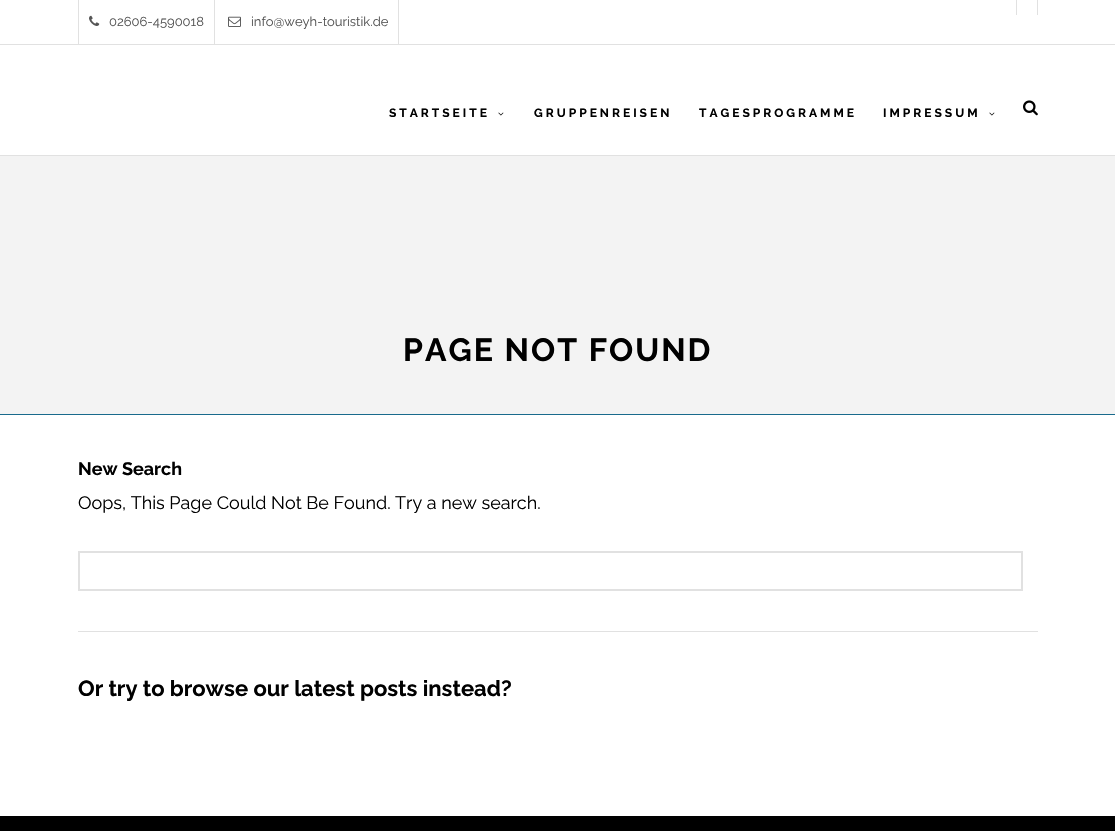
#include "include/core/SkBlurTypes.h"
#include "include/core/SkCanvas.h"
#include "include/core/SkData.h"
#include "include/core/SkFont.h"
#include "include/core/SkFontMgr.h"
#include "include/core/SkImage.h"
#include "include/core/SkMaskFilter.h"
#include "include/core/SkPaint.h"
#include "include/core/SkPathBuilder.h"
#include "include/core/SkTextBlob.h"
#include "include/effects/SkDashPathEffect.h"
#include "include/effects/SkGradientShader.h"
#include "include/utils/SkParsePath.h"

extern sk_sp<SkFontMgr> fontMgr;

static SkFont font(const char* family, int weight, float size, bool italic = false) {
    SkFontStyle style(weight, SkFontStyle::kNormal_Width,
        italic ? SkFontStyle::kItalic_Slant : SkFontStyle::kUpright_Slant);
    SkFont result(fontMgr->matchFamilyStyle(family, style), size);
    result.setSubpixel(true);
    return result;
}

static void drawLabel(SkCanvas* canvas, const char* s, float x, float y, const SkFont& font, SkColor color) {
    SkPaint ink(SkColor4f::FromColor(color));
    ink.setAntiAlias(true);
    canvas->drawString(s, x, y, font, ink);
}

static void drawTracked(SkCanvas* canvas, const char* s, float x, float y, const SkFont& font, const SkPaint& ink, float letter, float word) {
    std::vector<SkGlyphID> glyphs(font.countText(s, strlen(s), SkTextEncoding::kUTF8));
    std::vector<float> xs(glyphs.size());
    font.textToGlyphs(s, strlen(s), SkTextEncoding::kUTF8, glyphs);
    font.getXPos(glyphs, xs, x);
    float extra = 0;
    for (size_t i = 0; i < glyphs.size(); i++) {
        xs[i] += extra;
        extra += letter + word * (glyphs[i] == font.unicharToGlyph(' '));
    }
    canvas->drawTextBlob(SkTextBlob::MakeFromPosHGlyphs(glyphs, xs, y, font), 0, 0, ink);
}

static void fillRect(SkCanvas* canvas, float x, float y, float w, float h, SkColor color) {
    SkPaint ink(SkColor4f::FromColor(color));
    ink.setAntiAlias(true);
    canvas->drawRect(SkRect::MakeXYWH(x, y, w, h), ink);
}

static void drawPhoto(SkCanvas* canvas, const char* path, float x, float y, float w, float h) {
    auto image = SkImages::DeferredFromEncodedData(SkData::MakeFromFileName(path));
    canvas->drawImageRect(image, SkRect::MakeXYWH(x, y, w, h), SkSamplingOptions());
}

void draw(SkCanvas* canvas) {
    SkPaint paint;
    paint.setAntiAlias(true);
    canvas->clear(0xFFFFFFFF);
    fillRect(canvas, 0, 44, 1115, 1, 0xFFE1E1E1);
    fillRect(canvas, 1037, 0, 1, 15, 0xFFE1E1E1);
    fillRect(canvas, 1016, 0, 1, 15, 0xFFE1E1E1);
    fillRect(canvas, 78, 0, 1, 44, 0xFFE1E1E1);
    fillRect(canvas, 214, 0, 1, 44, 0xFFE1E1E1);
    drawPhoto(canvas, "assets/img1.png", 89, 15, 11, 11);
    SkFont font1 = font("Raleway", 400, 13);
    drawLabel(canvas, "02606-4590018", 109, 26, font1, 0xFF555555);
    fillRect(canvas, 398, 0, 1, 44, 0xFFE1E1E1);
    drawPhoto(canvas, "assets/img2.png", 228, 16, 13, 11);
    drawLabel(canvas, "info@weyh-touristik.de", 251, 26, font1, 0xFF555555);
    fillRect(canvas, 0, 155, 1115, 1, 0xFFE1E1E1);
    SkFont font2 = font("Raleway", 700, 12);
    paint.setColor(0xFF000000);
    drawTracked(canvas, "STARTSEITE", 389, 117, font2, paint, 3, 0);
    drawPhoto(canvas, "assets/img3.png", 498, 112, 6, 4);
    drawTracked(canvas, "GRUPPENREISEN", 534, 117, font2, paint, 3, 0);
    drawTracked(canvas, "TAGESPROGRAMME", 699, 117, font2, paint, 3, 0);
    drawTracked(canvas, "IMPRESSUM", 883, 117, font2, paint, 3, 0);
    drawPhoto(canvas, "assets/img3.png", 989, 112, 6, 4);
    drawPhoto(canvas, "assets/img4.png", 1023, 100, 15, 16);
    fillRect(canvas, 0, 156, 1115, 258, 0xFFF3F3F3);
    fillRect(canvas, 0, 414, 1115, 1, 0xFF196A8C);
    SkFont font3 = font("Raleway", 700, 32);
    drawTracked(canvas, "PAGE NOT FOUND", 403, 361, font3, paint, 2, 0);
    fillRect(canvas, 78, 631, 960, 1, 0xFFE1E1E1);
    SkFont font4 = font("Raleway", 700, 18);
    drawLabel(canvas, "New Search", 78, 475, font4, 0xFF000000);
    SkFont font5 = font("Raleway", 400, 18);
    drawLabel(canvas, "Oops, This Page Could Not Be Found. Try a new search.", 78, 509, font5, 0xFF000000);
    paint.setStroke(true);
    paint.setStrokeWidth(2);
    paint.setColor(0xFFE1E1E1);
    canvas->drawRect(SkRect::MakeXYWH(79, 552, 943, 38), paint);
    SkFont font6 = font("Raleway", 700, 22);
    drawLabel(canvas, "Or try to browse our latest posts instead?", 78, 696, font6, 0xFF000000);
    fillRect(canvas, 0, 816, 1115, 15, 0xFF000000);
}
